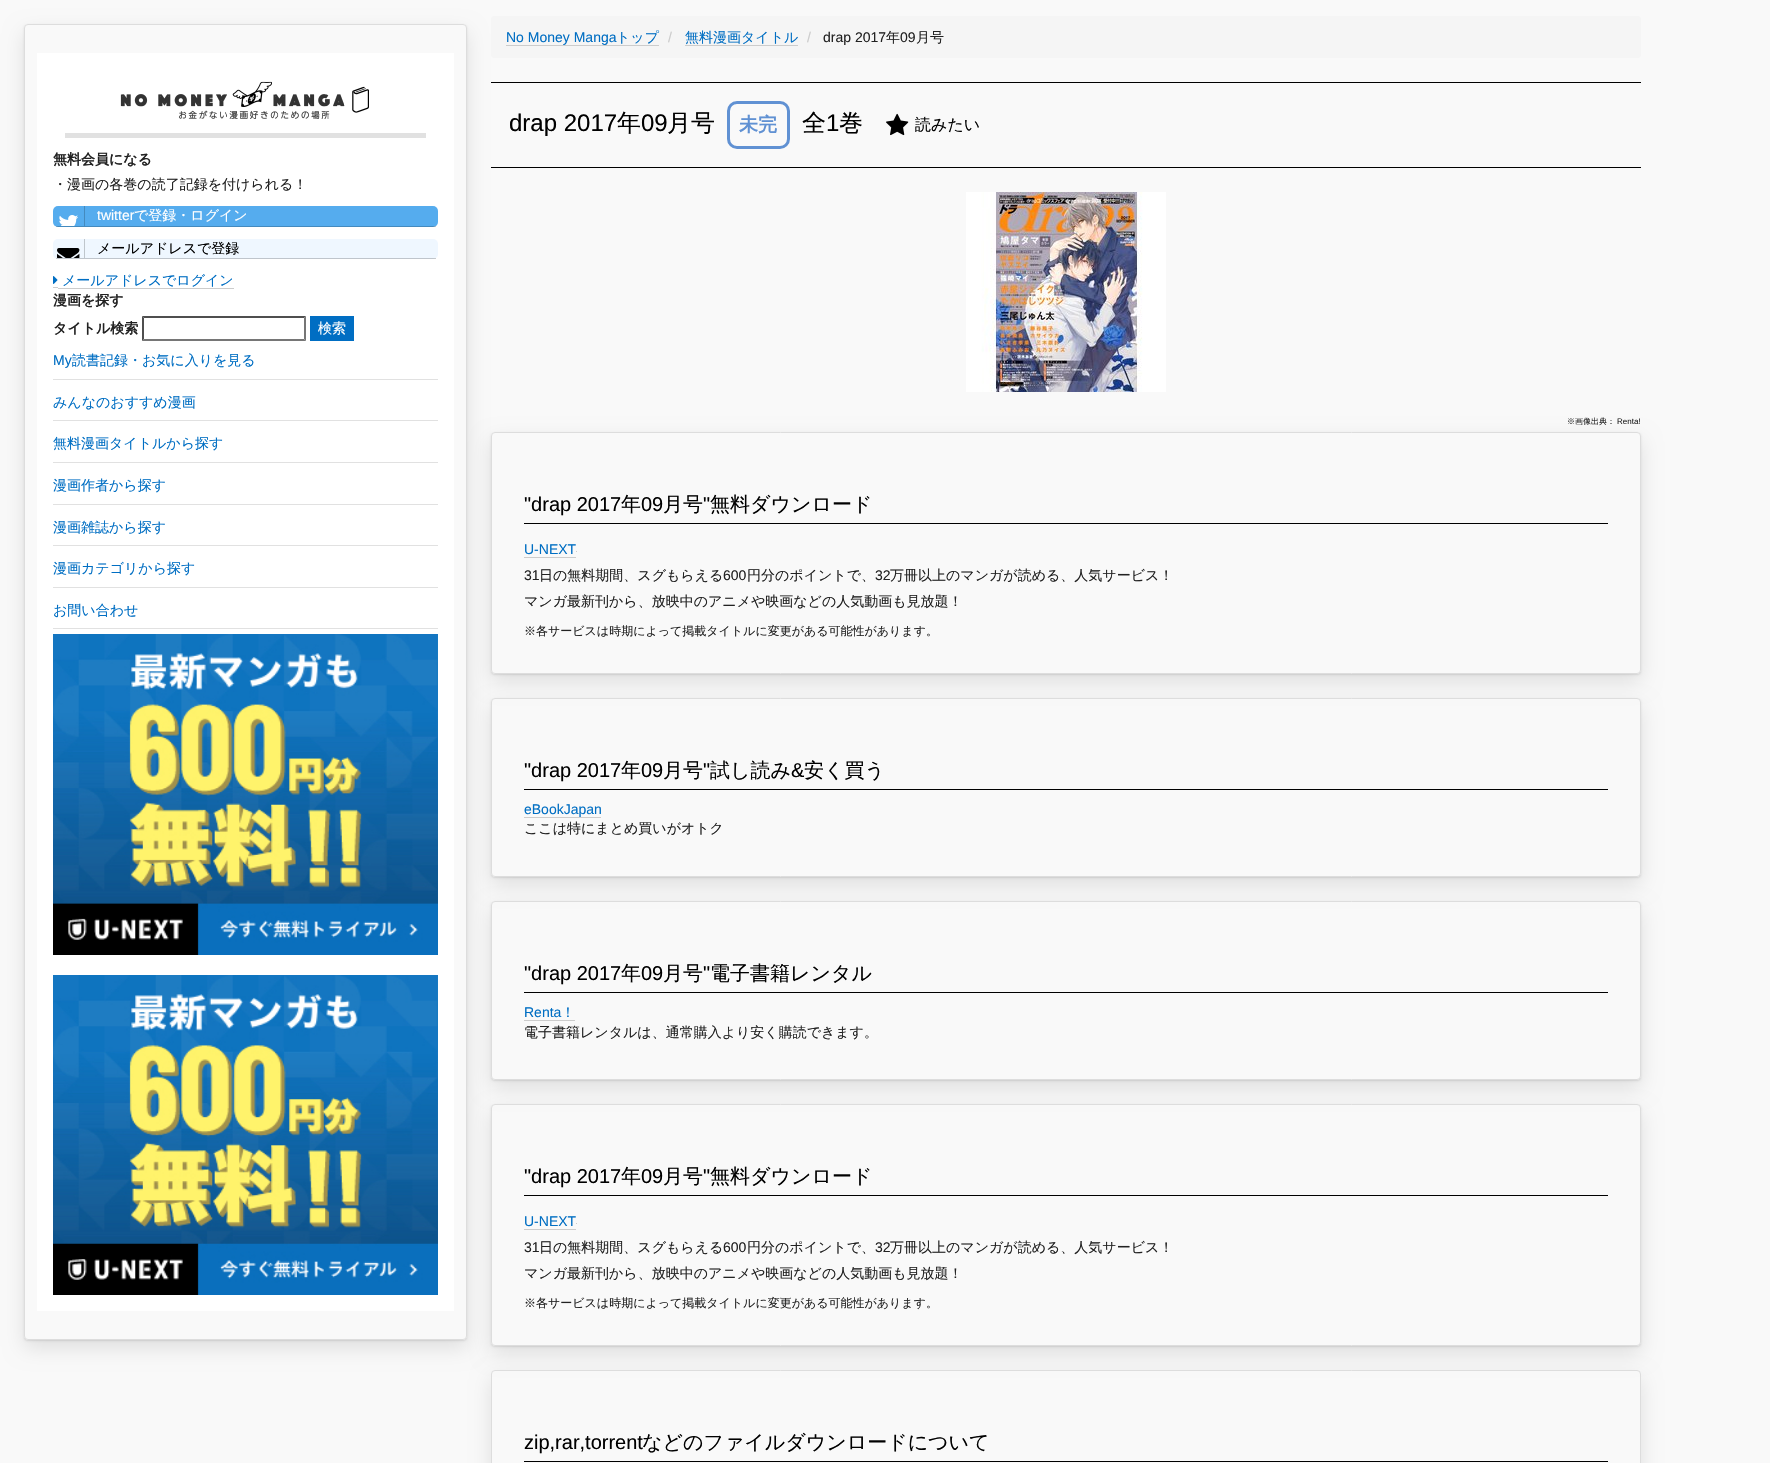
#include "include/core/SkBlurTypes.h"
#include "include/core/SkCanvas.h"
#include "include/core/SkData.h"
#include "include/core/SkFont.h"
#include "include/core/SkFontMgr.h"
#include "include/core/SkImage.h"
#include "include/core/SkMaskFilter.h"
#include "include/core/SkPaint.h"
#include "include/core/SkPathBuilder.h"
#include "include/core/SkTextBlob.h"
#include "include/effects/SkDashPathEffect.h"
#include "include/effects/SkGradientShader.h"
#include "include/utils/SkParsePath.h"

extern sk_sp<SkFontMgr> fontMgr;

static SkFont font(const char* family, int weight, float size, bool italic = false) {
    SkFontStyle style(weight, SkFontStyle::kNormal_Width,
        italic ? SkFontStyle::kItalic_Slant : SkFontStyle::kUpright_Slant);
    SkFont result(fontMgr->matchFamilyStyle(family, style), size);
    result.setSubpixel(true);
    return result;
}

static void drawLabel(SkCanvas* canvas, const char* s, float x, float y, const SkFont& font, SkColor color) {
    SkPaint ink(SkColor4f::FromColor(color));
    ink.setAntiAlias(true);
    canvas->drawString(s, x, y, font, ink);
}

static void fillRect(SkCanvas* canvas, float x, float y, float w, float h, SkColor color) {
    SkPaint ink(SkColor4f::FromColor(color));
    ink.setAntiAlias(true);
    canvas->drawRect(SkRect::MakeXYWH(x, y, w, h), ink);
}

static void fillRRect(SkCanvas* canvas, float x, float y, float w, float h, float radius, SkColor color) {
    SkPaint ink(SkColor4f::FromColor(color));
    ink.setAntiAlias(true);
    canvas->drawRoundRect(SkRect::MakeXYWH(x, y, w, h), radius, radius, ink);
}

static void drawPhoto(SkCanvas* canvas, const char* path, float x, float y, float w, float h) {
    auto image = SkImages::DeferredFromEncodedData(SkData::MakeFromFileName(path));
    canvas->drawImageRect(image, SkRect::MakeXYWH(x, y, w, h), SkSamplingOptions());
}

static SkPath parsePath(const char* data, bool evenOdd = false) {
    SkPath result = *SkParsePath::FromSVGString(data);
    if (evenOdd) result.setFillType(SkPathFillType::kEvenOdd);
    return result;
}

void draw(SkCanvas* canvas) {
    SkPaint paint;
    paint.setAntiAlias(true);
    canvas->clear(0xFFF9F9F9);
    canvas->save();
    canvas->clipPath(parsePath("M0 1H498V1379H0ZM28 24H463C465 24 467 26 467 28V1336C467 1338 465 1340 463 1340H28C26 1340 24 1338 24 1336V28C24 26 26 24 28 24Z", true), true);
    paint.setColor(0x1A000000);
    paint.setMaskFilter(SkMaskFilter::MakeBlur(kNormal_SkBlurStyle, 10));
    canvas->drawRoundRect(SkRect::MakeXYWH(24, 32, 443, 1316), 4, 4, paint);
    paint.setMaskFilter(nullptr);
    canvas->restore();
    canvas->save();
    canvas->clipPath(parsePath("M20 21H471V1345H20ZM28 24H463C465 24 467 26 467 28V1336C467 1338 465 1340 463 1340H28C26 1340 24 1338 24 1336V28C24 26 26 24 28 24Z", true), true);
    paint.setMaskFilter(SkMaskFilter::MakeBlur(kNormal_SkBlurStyle, 1));
    canvas->drawRoundRect(SkRect::MakeXYWH(24, 25, 443, 1316), 4, 4, paint);
    paint.setMaskFilter(nullptr);
    canvas->restore();
    paint.setStroke(true);
    paint.setStrokeWidth(1);
    paint.setColor(0xFFDDDDDD);
    canvas->drawRoundRect(SkRect::MakeXYWH(24.5f, 24.5f, 442, 1315), 3.5f, 3.5f, paint);
    fillRect(canvas, 37, 53, 417, 1258, 0xFFFFFFFF);
    fillRect(canvas, 65, 133, 361, 5, 0xFFE1E1E1);
    drawPhoto(canvas, "assets/img1.png", 120, 81, 249, 38);
    SkFont font1 = font("WenQuanYi Zen Hei", 700, 14);
    drawLabel(canvas, "無料会員になる", 53, 164, font1, 0xFF222222);
    SkFont font2 = font("WenQuanYi Zen Hei", 500, 14);
    drawLabel(canvas, "・漫画の各巻の読了記録を付けられる！", 53, 189, font2, 0xFF222222);
    fillRRect(canvas, 53, 206, 385, 21, 5, 0xFF55ACEE);
    fillRect(canvas, 56, 226, 380, 1, 0x33000000);
    fillRect(canvas, 84, 206, 1, 20, 0xFF448ABE);
    drawPhoto(canvas, "assets/img2.png", 59, 215, 19, 11);
    SkFont font3 = font("Liberation Sans", 400, 14);
    drawLabel(canvas, "twitter", 97, 220, font3, 0xFFFFFFFF);
    drawLabel(canvas, "で登録・ログイン", 134, 220, font2, 0xFFFFFFFF);
    fillRRect(canvas, 53, 239, 385, 20, 5, 0xFFEFF7FF);
    fillRect(canvas, 56, 258, 380, 1, 0x33000000);
    fillRect(canvas, 84, 239, 1, 19, 0xFFBFC6CC);
    drawPhoto(canvas, "assets/img3.png", 57, 248, 23, 10);
    drawLabel(canvas, "メールアドレスで登録", 97, 253, font2, 0xFF000000);
    fillRect(canvas, 53, 287, 5, 1, 0xFFCCCCCC);
    fillRect(canvas, 58, 288, 176, 1, 0xFFCCCCCC);
    drawPhoto(canvas, "assets/img4.png", 53, 276, 5, 8);
    drawLabel(canvas, "メールアドレスでログイン", 62, 285, font2, 0xFF006EC3);
    drawLabel(canvas, "漫画を探す", 53, 305, font1, 0xFF222222);
    drawLabel(canvas, "タイトル検索", 53, 333, font1, 0xFF222222);
    paint.setStroke(false);
    paint.setColor(0xFF4F4F4F);
    canvas->drawPath(parsePath("M142 316H306L304 318H144Z"), paint);
    paint.setColor(0xFF767676);
    canvas->drawPath(parsePath("M306 316V341L304 339V318Z"), paint);
    canvas->drawPath(parsePath("M306 341H142L144 339H304Z"), paint);
    paint.setColor(0xFF4F4F4F);
    canvas->drawPath(parsePath("M142 341V316L144 318V339Z"), paint);
    fillRect(canvas, 310, 316, 44, 25, 0xFF006EC3);
    drawLabel(canvas, "検索", 318, 333, font2, 0xFFFFFFFF);
    fillRect(canvas, 53, 379, 385, 1, 0xFFE1E1E1);
    drawLabel(canvas, "My", 53, 365, font3, 0xFF006EC3);
    drawLabel(canvas, "読書記録・お気に入りを見る", 72, 365, font2, 0xFF006EC3);
    fillRect(canvas, 53, 420, 385, 1, 0xFFE1E1E1);
    drawLabel(canvas, "みんなのおすすめ漫画", 53, 407, font2, 0xFF006EC3);
    fillRect(canvas, 53, 462, 385, 1, 0xFFE1E1E1);
    drawLabel(canvas, "無料漫画タイトルから探す", 53, 448, font2, 0xFF006EC3);
    fillRect(canvas, 53, 504, 385, 1, 0xFFE1E1E1);
    drawLabel(canvas, "漫画作者から探す", 53, 490, font2, 0xFF006EC3);
    fillRect(canvas, 53, 545, 385, 1, 0xFFE1E1E1);
    drawLabel(canvas, "漫画雑誌から探す", 53, 532, font2, 0xFF006EC3);
    fillRect(canvas, 53, 587, 385, 1, 0xFFE1E1E1);
    drawLabel(canvas, "漫画カテゴリから探す", 53, 573, font2, 0xFF006EC3);
    fillRect(canvas, 53, 628, 385, 1, 0xFFE1E1E1);
    drawLabel(canvas, "お問い合わせ", 53, 615, font2, 0xFF006EC3);
    drawPhoto(canvas, "assets/img5.png", 53, 634, 385, 321);
    drawPhoto(canvas, "assets/img6.png", 53, 975, 385, 320);
    fillRRect(canvas, 491, 16, 1150, 42, 4, 0xFFF5F5F5);
    drawLabel(canvas, "No Money Manga", 506, 42, font3, 0xFF006EC3);
    fillRect(canvas, 506, 45, 153, 1, 0xFFCCCCCC);
    drawLabel(canvas, "トップ", 616, 42, font2, 0xFF006EC3);
    drawLabel(canvas, "/", 668, 42, font3, 0xFFCCCCCC);
    drawLabel(canvas, "無料漫画タイトル", 685, 42, font2, 0xFF006EC3);
    fillRect(canvas, 685, 45, 113, 1, 0xFFCCCCCC);
    drawLabel(canvas, "/", 807, 42, font3, 0xFFCCCCCC);
    drawLabel(canvas, "drap 2017", 823, 42, font3, 0xFF222222);
    drawLabel(canvas, "年", 886, 42, font2, 0xFF222222);
    drawLabel(canvas, "09", 900, 42, font3, 0xFF222222);
    drawLabel(canvas, "月号", 916, 42, font2, 0xFF222222);
    fillRect(canvas, 491, 82, 1150, 1, 0xFF000000);
    fillRect(canvas, 491, 167, 1150, 1, 0xFF000000);
    SkFont font4 = font("Liberation Sans", 400, 24);
    drawLabel(canvas, "drap 2017", 509, 131, font4, 0xFF000000);
    SkFont font5 = font("WenQuanYi Zen Hei", 500, 24);
    drawLabel(canvas, "年", 617, 131, font5, 0xFF000000);
    drawLabel(canvas, "09", 641, 131, font4, 0xFF000000);
    drawLabel(canvas, "月号", 667, 131, font5, 0xFF000000);
    paint.setStroke(true);
    paint.setStrokeWidth(3);
    paint.setColor(0xFF6091D3);
    canvas->drawRoundRect(SkRect::MakeXYWH(728.5f, 102.5f, 60, 45), 8.5f, 8.5f, paint);
    SkFont font6 = font("WenQuanYi Zen Hei", 700, 19);
    drawLabel(canvas, "未完", 739, 131, font6, 0xFF6091D3);
    drawLabel(canvas, "全", 802, 131, font5, 0xFF000000);
    drawLabel(canvas, "1", 826, 131, font4, 0xFF000000);
    drawLabel(canvas, "巻", 839, 131, font5, 0xFF000000);
    drawPhoto(canvas, "assets/img7.png", 886, 113, 23, 23);
    SkFont font7 = font("WenQuanYi Zen Hei", 500, 16);
    drawLabel(canvas, "読みたい", 915, 130, font7, 0xFF000000);
    drawPhoto(canvas, "assets/img8.png", 966, 192, 200, 200);
    canvas->save();
    canvas->clipPath(parsePath("M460 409H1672V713H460ZM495 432H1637C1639 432 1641 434 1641 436V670C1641 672 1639 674 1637 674H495C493 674 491 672 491 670V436C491 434 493 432 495 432Z", true), true);
    paint.setStroke(false);
    paint.setColor(0x1A000000);
    paint.setMaskFilter(SkMaskFilter::MakeBlur(kNormal_SkBlurStyle, 10));
    canvas->drawRoundRect(SkRect::MakeXYWH(491, 440, 1150, 242), 4, 4, paint);
    paint.setMaskFilter(nullptr);
    canvas->restore();
    SkFont font8 = font("WenQuanYi Zen Hei", 500, 8);
    drawLabel(canvas, "※画像出典：", 1567, 424, font8, 0xFF222222);
    SkFont font9 = font("Liberation Sans", 400, 8);
    drawLabel(canvas, "Renta!", 1617, 424, font9, 0xFF222222);
    canvas->save();
    canvas->clipPath(parsePath("M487 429H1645V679H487ZM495 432H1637C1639 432 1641 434 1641 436V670C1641 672 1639 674 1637 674H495C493 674 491 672 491 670V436C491 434 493 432 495 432Z", true), true);
    paint.setMaskFilter(SkMaskFilter::MakeBlur(kNormal_SkBlurStyle, 1));
    canvas->drawRoundRect(SkRect::MakeXYWH(491, 433, 1150, 242), 4, 4, paint);
    paint.setMaskFilter(nullptr);
    canvas->restore();
    paint.setStroke(true);
    paint.setStrokeWidth(1);
    paint.setColor(0xFFDDDDDD);
    canvas->drawRoundRect(SkRect::MakeXYWH(491.5f, 432.5f, 1149, 241), 3.5f, 3.5f, paint);
    fillRect(canvas, 524, 523, 1084, 1, 0xFF000000);
    SkFont font10 = font("Liberation Sans", 400, 20);
    drawLabel(canvas, "\"drap 2017", 524, 511, font10, 0xFF000000);
    SkFont font11 = font("WenQuanYi Zen Hei", 500, 20);
    drawLabel(canvas, "年", 621, 511, font11, 0xFF000000);
    drawLabel(canvas, "09", 641, 511, font10, 0xFF000000);
    drawLabel(canvas, "月号", 663, 511, font11, 0xFF000000);
    drawLabel(canvas, "\"", 703, 511, font10, 0xFF000000);
    drawLabel(canvas, "無料ダウンロード", 710, 511, font11, 0xFF000000);
    drawLabel(canvas, "U-NEXT", 524, 554, font3, 0xFF006EC3);
    fillRect(canvas, 524, 557, 52, 1, 0xFFCCCCCC);
    fillRect(canvas, 576, 551, 1, 1, 0xFFCCCCCC);
    drawLabel(canvas, "31", 524, 580, font3, 0xFF222222);
    drawLabel(canvas, "日の無料期間、スグもらえる", 539, 580, font2, 0xFF222222);
    drawLabel(canvas, "600", 723, 580, font3, 0xFF222222);
    drawLabel(canvas, "円分のポイントで、", 747, 580, font2, 0xFF222222);
    drawLabel(canvas, "32", 875, 580, font3, 0xFF222222);
    drawLabel(canvas, "万冊以上のマンガが読める、人気サービス！", 890, 580, font2, 0xFF222222);
    drawLabel(canvas, "マンガ最新刊から、放映中のアニメや映画などの人気動画も見放題！", 524, 606, font2, 0xFF222222);
    SkFont font12 = font("WenQuanYi Zen Hei", 500, 12);
    drawLabel(canvas, "※各サービスは時期によって掲載タイトルに変更がある可能性があります。", 524, 635, font12, 0xFF222222);
    canvas->save();
    canvas->clipPath(parsePath("M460 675H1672V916H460ZM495 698H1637C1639 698 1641 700 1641 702V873C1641 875 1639 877 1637 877H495C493 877 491 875 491 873V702C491 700 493 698 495 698Z", true), true);
    paint.setStroke(false);
    paint.setColor(0x1A000000);
    paint.setMaskFilter(SkMaskFilter::MakeBlur(kNormal_SkBlurStyle, 10));
    canvas->drawRoundRect(SkRect::MakeXYWH(491, 706, 1150, 179), 4, 4, paint);
    paint.setMaskFilter(nullptr);
    canvas->restore();
    canvas->save();
    canvas->clipPath(parsePath("M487 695H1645V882H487ZM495 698H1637C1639 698 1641 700 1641 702V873C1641 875 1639 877 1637 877H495C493 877 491 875 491 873V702C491 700 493 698 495 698Z", true), true);
    paint.setMaskFilter(SkMaskFilter::MakeBlur(kNormal_SkBlurStyle, 1));
    canvas->drawRoundRect(SkRect::MakeXYWH(491, 699, 1150, 179), 4, 4, paint);
    paint.setMaskFilter(nullptr);
    canvas->restore();
    paint.setStroke(true);
    paint.setColor(0xFFDDDDDD);
    canvas->drawRoundRect(SkRect::MakeXYWH(491.5f, 698.5f, 1149, 178), 3.5f, 3.5f, paint);
    fillRect(canvas, 524, 789, 1084, 1, 0xFF000000);
    drawLabel(canvas, "\"drap 2017", 524, 777, font10, 0xFF000000);
    drawLabel(canvas, "年", 621, 777, font11, 0xFF000000);
    drawLabel(canvas, "09", 641, 777, font10, 0xFF000000);
    drawLabel(canvas, "月号", 663, 777, font11, 0xFF000000);
    drawLabel(canvas, "\"", 703, 777, font10, 0xFF000000);
    drawLabel(canvas, "試し読み", 710, 777, font11, 0xFF000000);
    drawLabel(canvas, "&", 791, 777, font10, 0xFF000000);
    drawLabel(canvas, "安く買う", 804, 777, font11, 0xFF000000);
    drawLabel(canvas, "eBookJapan", 524, 814, font3, 0xFF006EC3);
    fillRect(canvas, 524, 817, 77, 1, 0xFFCCCCCC);
    drawLabel(canvas, "ここは特にまとめ買いがオトク", 524, 833, font2, 0xFF222222);
    canvas->save();
    canvas->clipPath(parsePath("M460 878H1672V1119H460ZM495 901H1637C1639 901 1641 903 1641 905V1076C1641 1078 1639 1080 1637 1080H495C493 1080 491 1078 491 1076V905C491 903 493 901 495 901Z", true), true);
    paint.setStroke(false);
    paint.setColor(0x1A000000);
    paint.setMaskFilter(SkMaskFilter::MakeBlur(kNormal_SkBlurStyle, 10));
    canvas->drawRoundRect(SkRect::MakeXYWH(491, 909, 1150, 179), 4, 4, paint);
    paint.setMaskFilter(nullptr);
    canvas->restore();
    canvas->save();
    canvas->clipPath(parsePath("M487 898H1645V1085H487ZM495 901H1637C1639 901 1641 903 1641 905V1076C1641 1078 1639 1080 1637 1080H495C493 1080 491 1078 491 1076V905C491 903 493 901 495 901Z", true), true);
    paint.setMaskFilter(SkMaskFilter::MakeBlur(kNormal_SkBlurStyle, 1));
    canvas->drawRoundRect(SkRect::MakeXYWH(491, 902, 1150, 179), 4, 4, paint);
    paint.setMaskFilter(nullptr);
    canvas->restore();
    paint.setStroke(true);
    paint.setColor(0xFFDDDDDD);
    canvas->drawRoundRect(SkRect::MakeXYWH(491.5f, 901.5f, 1149, 178), 3.5f, 3.5f, paint);
    fillRect(canvas, 524, 992, 1084, 1, 0xFF000000);
    drawLabel(canvas, "\"drap 2017", 524, 980, font10, 0xFF000000);
    drawLabel(canvas, "年", 621, 980, font11, 0xFF000000);
    drawLabel(canvas, "09", 641, 980, font10, 0xFF000000);
    drawLabel(canvas, "月号", 663, 980, font11, 0xFF000000);
    drawLabel(canvas, "\"", 703, 980, font10, 0xFF000000);
    drawLabel(canvas, "電子書籍レンタル", 710, 980, font11, 0xFF000000);
    drawLabel(canvas, "Renta", 524, 1017, font3, 0xFF006EC3);
    fillRect(canvas, 524, 1020, 51, 1, 0xFFCCCCCC);
    drawLabel(canvas, "！", 561, 1017, font2, 0xFF006EC3);
    drawLabel(canvas, "電子書籍レンタルは、通常購入より安く購読できます。", 524, 1037, font2, 0xFF222222);
    canvas->save();
    canvas->clipPath(parsePath("M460 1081H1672V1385H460ZM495 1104H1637C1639 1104 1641 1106 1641 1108V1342C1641 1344 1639 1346 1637 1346H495C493 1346 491 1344 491 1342V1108C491 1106 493 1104 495 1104Z", true), true);
    paint.setStroke(false);
    paint.setColor(0x1A000000);
    paint.setMaskFilter(SkMaskFilter::MakeBlur(kNormal_SkBlurStyle, 10));
    canvas->drawRoundRect(SkRect::MakeXYWH(491, 1112, 1150, 242), 4, 4, paint);
    paint.setMaskFilter(nullptr);
    canvas->restore();
    canvas->save();
    canvas->clipPath(parsePath("M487 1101H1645V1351H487ZM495 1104H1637C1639 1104 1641 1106 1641 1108V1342C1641 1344 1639 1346 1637 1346H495C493 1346 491 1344 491 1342V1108C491 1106 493 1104 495 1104Z", true), true);
    paint.setMaskFilter(SkMaskFilter::MakeBlur(kNormal_SkBlurStyle, 1));
    canvas->drawRoundRect(SkRect::MakeXYWH(491, 1105, 1150, 242), 4, 4, paint);
    paint.setMaskFilter(nullptr);
    canvas->restore();
    paint.setStroke(true);
    paint.setColor(0xFFDDDDDD);
    canvas->drawRoundRect(SkRect::MakeXYWH(491.5f, 1104.5f, 1149, 241), 3.5f, 3.5f, paint);
    fillRect(canvas, 524, 1195, 1084, 1, 0xFF000000);
    drawLabel(canvas, "\"drap 2017", 524, 1183, font10, 0xFF000000);
    drawLabel(canvas, "年", 621, 1183, font11, 0xFF000000);
    drawLabel(canvas, "09", 641, 1183, font10, 0xFF000000);
    drawLabel(canvas, "月号", 663, 1183, font11, 0xFF000000);
    drawLabel(canvas, "\"", 703, 1183, font10, 0xFF000000);
    drawLabel(canvas, "無料ダウンロード", 710, 1183, font11, 0xFF000000);
    drawLabel(canvas, "U-NEXT", 524, 1226, font3, 0xFF006EC3);
    fillRect(canvas, 524, 1229, 52, 1, 0xFFCCCCCC);
    fillRect(canvas, 576, 1223, 1, 1, 0xFFCCCCCC);
    drawLabel(canvas, "31", 524, 1252, font3, 0xFF222222);
    drawLabel(canvas, "日の無料期間、スグもらえる", 539, 1252, font2, 0xFF222222);
    drawLabel(canvas, "600", 723, 1252, font3, 0xFF222222);
    drawLabel(canvas, "円分のポイントで、", 747, 1252, font2, 0xFF222222);
    drawLabel(canvas, "32", 875, 1252, font3, 0xFF222222);
    drawLabel(canvas, "万冊以上のマンガが読める、人気サービス！", 890, 1252, font2, 0xFF222222);
    drawLabel(canvas, "マンガ最新刊から、放映中のアニメや映画などの人気動画も見放題！", 524, 1278, font2, 0xFF222222);
    drawLabel(canvas, "※各サービスは時期によって掲載タイトルに変更がある可能性があります。", 524, 1307, font12, 0xFF222222);
    canvas->save();
    canvas->clipPath(parsePath("M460 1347H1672V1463H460ZM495 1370H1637C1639 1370 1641 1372 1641 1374V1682C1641 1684 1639 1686 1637 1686H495C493 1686 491 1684 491 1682V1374C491 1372 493 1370 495 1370Z", true), true);
    paint.setStroke(false);
    paint.setColor(0x1A000000);
    paint.setMaskFilter(SkMaskFilter::MakeBlur(kNormal_SkBlurStyle, 10));
    canvas->drawRoundRect(SkRect::MakeXYWH(491, 1378, 1150, 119), 4, 4, paint);
    paint.setMaskFilter(nullptr);
    canvas->restore();
    paint.setStroke(true);
    paint.setColor(0xFFDDDDDD);
    canvas->drawRoundRect(SkRect::MakeXYWH(491.5f, 1370.5f, 1149, 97), 3.5f, 3.5f, paint);
    fillRect(canvas, 524, 1461, 1084, 1, 0xFF000000);
    drawLabel(canvas, "zip,rar,torrent", 524, 1449, font10, 0xFF000000);
    drawLabel(canvas, "などのファイルダウンロードについて", 642, 1449, font11, 0xFF000000);
}
